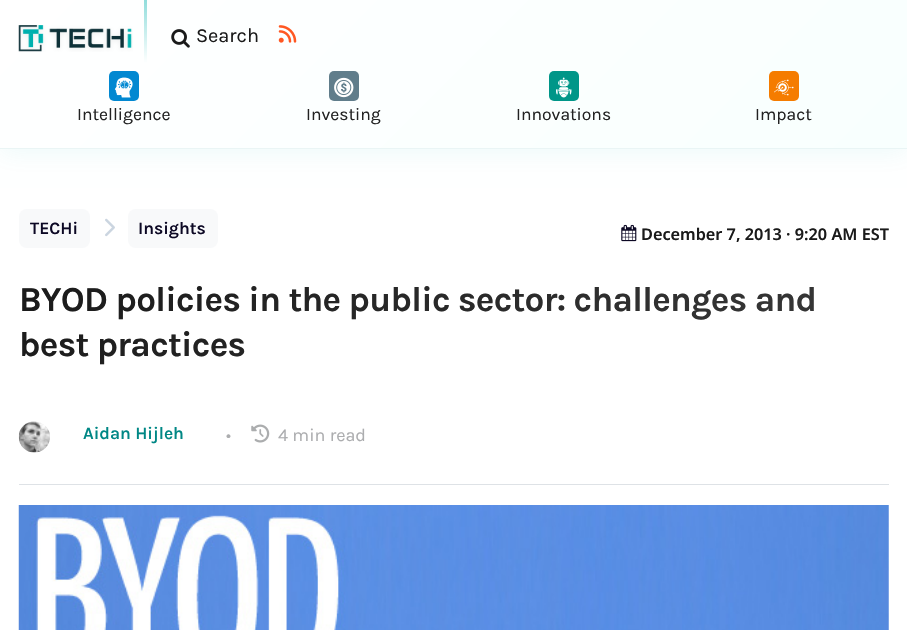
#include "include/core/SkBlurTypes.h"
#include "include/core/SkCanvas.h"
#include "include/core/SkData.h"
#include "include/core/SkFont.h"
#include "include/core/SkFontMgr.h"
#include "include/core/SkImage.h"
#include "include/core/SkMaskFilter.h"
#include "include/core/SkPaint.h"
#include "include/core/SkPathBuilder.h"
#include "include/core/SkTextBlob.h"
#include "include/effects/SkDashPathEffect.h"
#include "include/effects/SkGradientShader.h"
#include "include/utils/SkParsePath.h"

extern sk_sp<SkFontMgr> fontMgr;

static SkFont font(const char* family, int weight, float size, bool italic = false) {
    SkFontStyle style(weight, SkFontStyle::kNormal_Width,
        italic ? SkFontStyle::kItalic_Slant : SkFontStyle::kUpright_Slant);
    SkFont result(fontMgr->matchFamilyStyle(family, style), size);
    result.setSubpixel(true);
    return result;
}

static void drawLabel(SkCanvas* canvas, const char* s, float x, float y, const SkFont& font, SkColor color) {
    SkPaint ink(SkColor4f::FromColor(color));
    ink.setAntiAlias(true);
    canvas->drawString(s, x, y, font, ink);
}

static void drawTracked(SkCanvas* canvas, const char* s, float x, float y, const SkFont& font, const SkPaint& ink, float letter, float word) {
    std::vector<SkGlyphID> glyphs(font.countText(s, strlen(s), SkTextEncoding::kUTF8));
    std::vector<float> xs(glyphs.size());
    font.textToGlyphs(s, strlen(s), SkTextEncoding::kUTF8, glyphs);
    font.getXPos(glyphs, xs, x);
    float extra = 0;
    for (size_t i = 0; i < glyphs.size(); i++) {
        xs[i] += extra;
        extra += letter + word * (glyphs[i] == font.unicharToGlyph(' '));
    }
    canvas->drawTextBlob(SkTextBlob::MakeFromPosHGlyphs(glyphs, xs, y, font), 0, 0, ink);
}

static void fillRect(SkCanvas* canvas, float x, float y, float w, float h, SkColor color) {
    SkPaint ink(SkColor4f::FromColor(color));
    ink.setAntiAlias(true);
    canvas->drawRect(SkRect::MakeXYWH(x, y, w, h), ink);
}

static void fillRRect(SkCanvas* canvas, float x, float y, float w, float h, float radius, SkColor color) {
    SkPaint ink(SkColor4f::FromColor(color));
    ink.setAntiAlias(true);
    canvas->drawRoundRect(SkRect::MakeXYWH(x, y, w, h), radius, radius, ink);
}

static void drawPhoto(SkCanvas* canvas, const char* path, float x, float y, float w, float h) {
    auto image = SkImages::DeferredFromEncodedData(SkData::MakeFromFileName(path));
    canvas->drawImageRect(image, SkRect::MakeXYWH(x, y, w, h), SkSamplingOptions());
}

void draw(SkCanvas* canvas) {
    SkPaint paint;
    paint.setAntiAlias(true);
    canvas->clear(0xFFFFFFFF);
    paint.setColor(0x1400B0AE);
    paint.setMaskFilter(SkMaskFilter::MakeBlur(kNormal_SkBlurStyle, 12.5f));
    canvas->drawRect(SkRect::MakeXYWH(0, 3, 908, 148), paint);
    paint.setMaskFilter(nullptr);
    {
        const SkColor colors[] = {0xFFFFFFFF, 0xFFF8FFFE};
        const float stops[] = {0, 1};
        const SkPoint ends[] = {{190, -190}, {718, 338}};
        paint.setShader(SkGradientShader::MakeLinear(ends, colors, stops, 2, SkTileMode::kClamp));
        paint.setAlpha(255);
    }
    canvas->drawRect(SkRect::MakeXYWH(0, 0, 907, 148), paint);
    {
        const SkColor colors[] = {0xFFFFFFFF, 0xFFF8FFFE};
        const float stops[] = {0, 1};
        const SkPoint ends[] = {{190, -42}, {718, 485}};
        paint.setShader(SkGradientShader::MakeLinear(ends, colors, stops, 2, SkTileMode::kClamp));
        paint.setAlpha(255);
    }
    canvas->drawRect(SkRect::MakeXYWH(0, 148, 907, 1), paint);
    fillRect(canvas, 0, 148, 907, 1, 0xCCE5F3F3);
    drawPhoto(canvas, "assets/img1.png", 18, 25, 115, 27);
    {
        const SkColor colors[] = {0xFF66D0CE, 0xFFFEFFFF};
        const float stops[] = {0, 1};
        const SkPoint ends[] = {{145, -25}, {145, 63}};
        paint.setShader(SkGradientShader::MakeLinear(ends, colors, stops, 2, SkTileMode::kClamp));
        paint.setAlpha(255);
    }
    canvas->drawRect(SkRect::MakeXYWH(144, 0, 3, 63), paint);
    drawPhoto(canvas, "assets/img2.png", 171, 29, 19, 19);
    SkFont font1 = font("Karla", 400, 20);
    drawLabel(canvas, "Search", 196, 42, font1, 0xFF1A1A1A);
    drawPhoto(canvas, "assets/img3.png", 278, 25, 19, 18);
    fillRRect(canvas, 109, 71, 30, 30, 5, 0xFF0288D1);
    drawPhoto(canvas, "assets/img4.png", 114, 77, 19, 21);
    SkFont font2 = font("Karla", 400, 17.5f);
    drawLabel(canvas, "Intelligence", 77, 120, font2, 0xFF222222);
    fillRRect(canvas, 329, 71, 30, 30, 5, 0xFF607D8B);
    drawPhoto(canvas, "assets/img5.png", 334, 77, 20, 21);
    drawLabel(canvas, "Investing", 306, 120, font2, 0xFF222222);
    fillRRect(canvas, 549, 71, 30, 30, 5, 0xFF009688);
    drawPhoto(canvas, "assets/img6.png", 556, 77, 16, 21);
    drawLabel(canvas, "Innovations", 516, 120, font2, 0xFF222222);
    fillRRect(canvas, 769, 71, 30, 30, 5, 0xFFF57C00);
    drawPhoto(canvas, "assets/img7.png", 774, 79, 20, 17);
    drawLabel(canvas, "Impact", 755, 120, font2, 0xFF222222);
    fillRRect(canvas, 19, 209, 71, 39, 8, 0xFFF8F9FA);
    SkFont font3 = font("Karla", 600, 17.5f);
    drawLabel(canvas, "TECHi", 30, 234, font3, 0xFF0C0824);
    drawPhoto(canvas, "assets/img8.png", 105, 218, 10, 19);
    fillRRect(canvas, 128, 209, 90, 39, 8, 0xFFF8F9FA);
    drawLabel(canvas, "Insights", 138, 234, font3, 0xFF0C0824);
    drawPhoto(canvas, "assets/img9.png", 621, 224, 16, 18);
    SkFont font4 = font("Noto Sans", 600, 16.25f);
    drawLabel(canvas, "December 7, 2013 · 9:20 AM EST", 641, 240, font4, 0xFF1A1A1A);
    SkFont font5 = font("Karla", 700, 35);
    {
        const SkColor colors[] = {0xFF1A1A1A, 0xFF3A3A3A};
        const float stops[] = {0, 1};
        const SkPoint ends[] = {{214, 82}, {694, 563}};
        paint.setShader(SkGradientShader::MakeLinear(ends, colors, stops, 2, SkTileMode::kClamp));
        paint.setAlpha(255);
    }
    drawTracked(canvas, "BYOD policies in the public sector: challenges and", 19, 311, font5, paint, -0.7f, 0);
    drawTracked(canvas, "best practices", 19, 356, font5, paint, -0.7f, 0);
    fillRect(canvas, 19, 484, 870, 1, 0xFFDEE2E6);
    drawPhoto(canvas, "assets/img10.png", 18, 421, 32, 32);
    drawLabel(canvas, "Aidan Hijleh", 83, 439, font3, 0xFF008785);
    SkFont font6 = font("Karla", 400, 18);
    drawLabel(canvas, "•", 226, 441, font6, 0xFFACADAF);
    drawPhoto(canvas, "assets/img11.png", 251, 424, 19, 19);
    drawLabel(canvas, "4 min read", 278, 441, font6, 0xFFACADAF);
    drawPhoto(canvas, "assets/img12.png", 18, 505, 871, 125);
}
